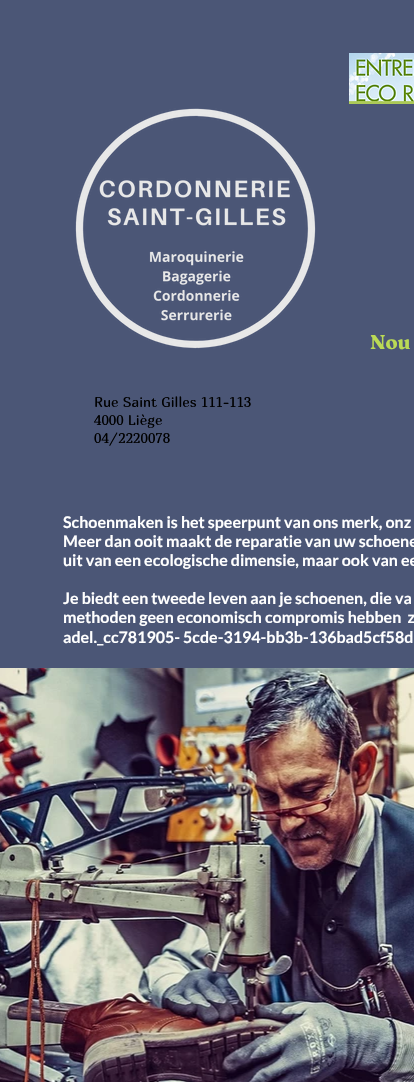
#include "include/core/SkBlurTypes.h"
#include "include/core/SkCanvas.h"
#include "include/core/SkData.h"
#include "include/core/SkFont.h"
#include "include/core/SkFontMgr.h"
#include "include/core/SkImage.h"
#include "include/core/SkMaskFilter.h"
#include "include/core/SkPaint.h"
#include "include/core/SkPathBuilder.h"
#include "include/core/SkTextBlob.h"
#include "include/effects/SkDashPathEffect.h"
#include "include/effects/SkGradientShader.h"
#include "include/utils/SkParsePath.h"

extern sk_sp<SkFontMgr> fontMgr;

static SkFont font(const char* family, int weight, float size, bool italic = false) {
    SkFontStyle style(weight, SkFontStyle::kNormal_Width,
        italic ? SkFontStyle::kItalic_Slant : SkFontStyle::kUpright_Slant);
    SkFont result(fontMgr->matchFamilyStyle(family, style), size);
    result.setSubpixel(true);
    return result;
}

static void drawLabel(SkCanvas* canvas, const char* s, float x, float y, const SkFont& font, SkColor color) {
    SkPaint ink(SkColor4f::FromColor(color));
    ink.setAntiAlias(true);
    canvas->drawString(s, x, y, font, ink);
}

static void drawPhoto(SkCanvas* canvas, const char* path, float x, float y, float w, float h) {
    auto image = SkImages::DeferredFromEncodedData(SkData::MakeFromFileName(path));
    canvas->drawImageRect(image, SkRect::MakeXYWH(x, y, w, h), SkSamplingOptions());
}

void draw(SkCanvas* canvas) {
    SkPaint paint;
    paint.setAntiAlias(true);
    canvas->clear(0xFF4B5676);
    drawPhoto(canvas, "assets/img1.png", 349, 53, 65, 51);
    drawPhoto(canvas, "assets/img2.png", 75, 108, 241, 241);
    SkFont font1 = font("Fraunces", 700, 20);
    drawLabel(canvas, "Nou", 370, 349, font1, 0xFFBADA55);
    SkFont font2 = font("Marmelad", 400, 14);
    drawLabel(canvas, "Rue Saint Gilles 111-113", 94, 407, font2, 0xFF000000);
    drawLabel(canvas, "4000 Liège", 94, 425, font2, 0xFF000000);
    drawLabel(canvas, "04/2220078", 94, 443, font2, 0xFF000000);
    SkFont font3 = font("Lato", 700, 16);
    drawLabel(canvas, "Schoenmaken is het speerpunt van ons merk, onz", 63, 528, font3, 0xFFFFFFFF);
    drawLabel(canvas, "Meer dan ooit maakt de reparatie van uw schoene", 63, 547, font3, 0xFFFFFFFF);
    drawLabel(canvas, "uit van een ecologische dimensie, maar ook van ee", 63, 566, font3, 0xFFFFFFFF);
    drawLabel(canvas, "Je biedt een tweede leven aan je schoenen, die va", 63, 604, font3, 0xFFFFFFFF);
    drawLabel(canvas, "methoden geen economisch compromis hebben  z", 63, 623, font3, 0xFFFFFFFF);
    drawLabel(canvas, "adel._cc781905- 5cde-3194-bb3b-136bad5cf58d", 63, 643, font3, 0xFFFFFFFF);
    drawPhoto(canvas, "assets/img3.png", 0, 668, 414, 414);
}
